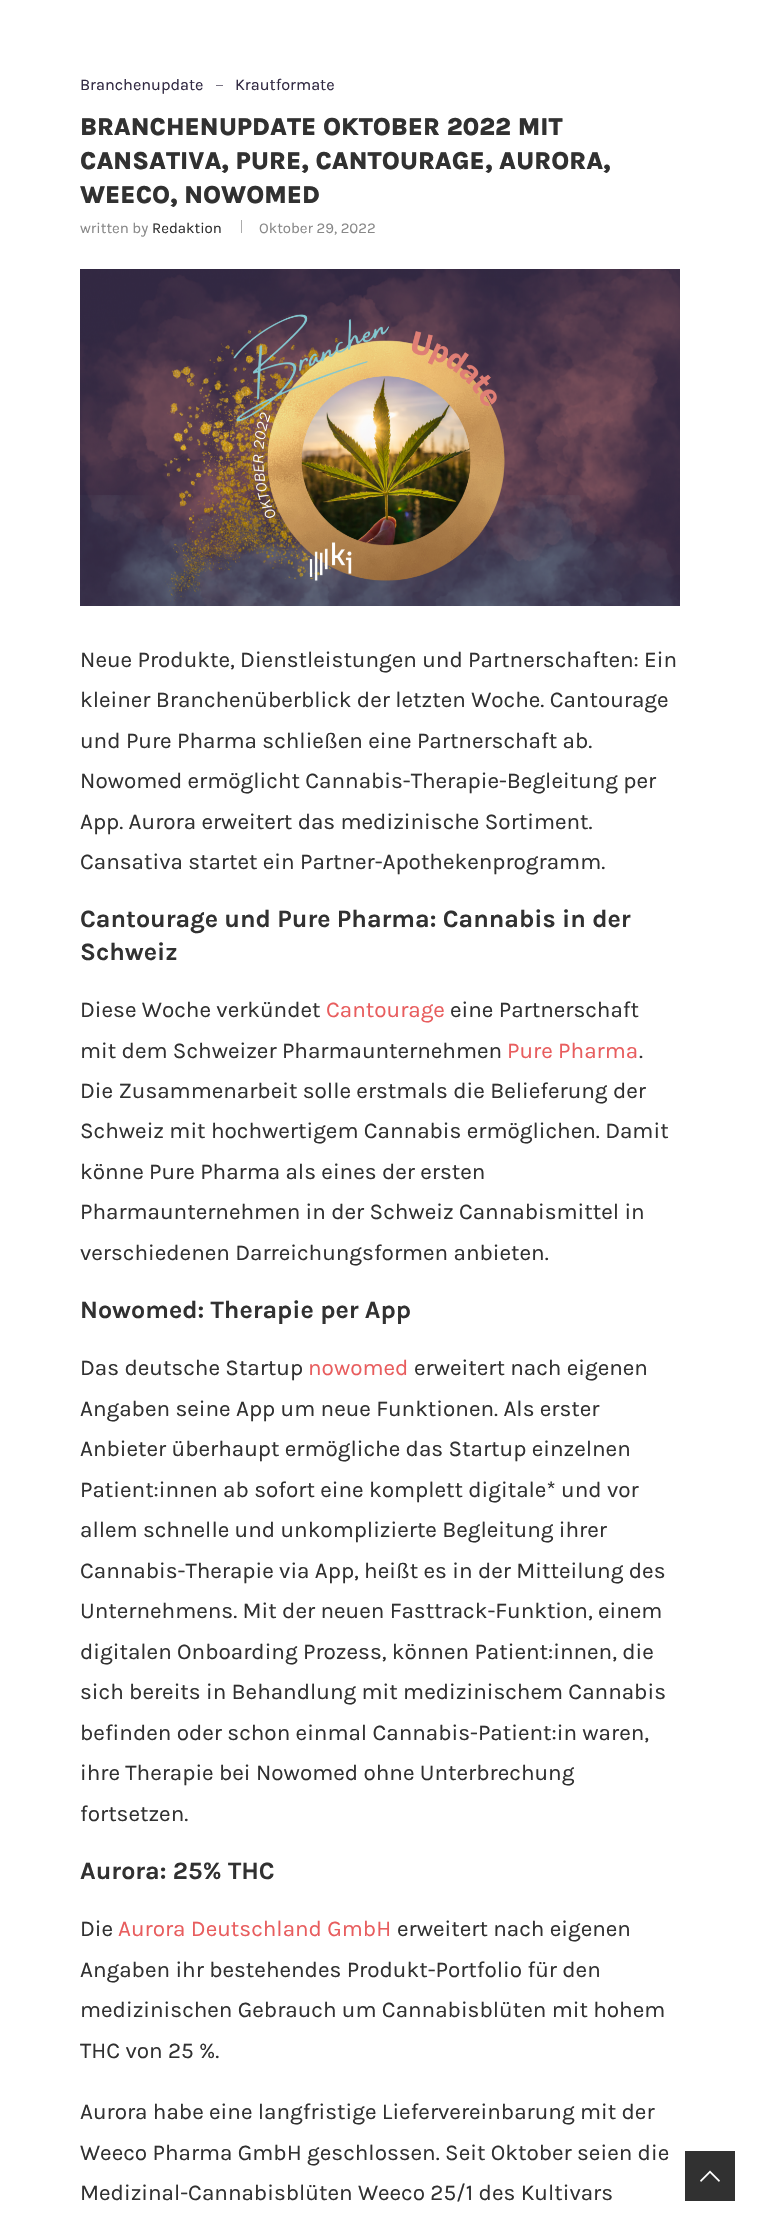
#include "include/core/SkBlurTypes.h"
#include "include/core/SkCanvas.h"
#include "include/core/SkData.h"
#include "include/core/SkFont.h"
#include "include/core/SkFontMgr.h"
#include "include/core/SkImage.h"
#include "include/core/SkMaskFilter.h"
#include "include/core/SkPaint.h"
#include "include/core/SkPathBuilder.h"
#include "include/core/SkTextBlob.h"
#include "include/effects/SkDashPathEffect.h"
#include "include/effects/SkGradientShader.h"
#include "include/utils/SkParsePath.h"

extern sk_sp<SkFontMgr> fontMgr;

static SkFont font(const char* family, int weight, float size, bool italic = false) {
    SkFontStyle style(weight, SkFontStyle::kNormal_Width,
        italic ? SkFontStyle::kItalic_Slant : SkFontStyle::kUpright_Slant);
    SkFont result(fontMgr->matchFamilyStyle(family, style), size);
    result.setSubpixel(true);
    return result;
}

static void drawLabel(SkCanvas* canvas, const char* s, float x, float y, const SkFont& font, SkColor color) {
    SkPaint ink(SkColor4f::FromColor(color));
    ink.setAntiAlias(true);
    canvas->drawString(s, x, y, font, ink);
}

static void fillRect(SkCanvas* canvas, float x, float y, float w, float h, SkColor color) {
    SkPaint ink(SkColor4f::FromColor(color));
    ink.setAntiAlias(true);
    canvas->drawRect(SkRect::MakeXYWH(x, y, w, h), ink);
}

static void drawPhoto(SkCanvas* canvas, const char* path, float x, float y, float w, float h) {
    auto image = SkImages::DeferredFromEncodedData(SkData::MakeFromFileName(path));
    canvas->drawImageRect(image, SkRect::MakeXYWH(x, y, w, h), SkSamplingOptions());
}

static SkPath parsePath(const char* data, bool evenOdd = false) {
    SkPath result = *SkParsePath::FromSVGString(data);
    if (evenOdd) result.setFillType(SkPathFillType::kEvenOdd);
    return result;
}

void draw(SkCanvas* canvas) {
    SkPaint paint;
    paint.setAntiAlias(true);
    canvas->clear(0xFFFFFFFF);
    SkFont font1 = font("Karla", 400, 16.25f);
    drawLabel(canvas, "Branchenupdate", 80, 90, font1, 0xFF312942);
    fillRect(canvas, 216, 85, 7, 1, 0xFF797484);
    drawLabel(canvas, "Krautformate", 235, 90, font1, 0xFF312942);
    SkFont font2 = font("Karla", 800, 25);
    drawLabel(canvas, "BRANCHENUPDATE OKTOBER 2022 MIT", 80, 135, font2, 0xFF313131);
    drawLabel(canvas, "CANSATIVA, PURE, CANTOURAGE, AURORA,", 80, 169, font2, 0xFF313131);
    drawLabel(canvas, "WEECO, NOWOMED", 80, 203, font2, 0xFF313131);
    SkFont font3 = font("Karla", 400, 15);
    drawLabel(canvas, "written by", 80, 233, font3, 0xFF888888);
    drawLabel(canvas, "Redaktion", 152, 233, font3, 0xFF313131);
    fillRect(canvas, 241, 220, 1, 13, 0xFFACACAC);
    drawLabel(canvas, "Oktober 29, 2022", 259, 233, font3, 0xFF888888);
    drawPhoto(canvas, "assets/img1.png", 80, 269, 600, 337);
    SkFont font4 = font("Karla", 400, 22.5f);
    drawLabel(canvas, "Neue Produkte, Dienstleistungen und Partnerschaften: Ein", 80, 667, font4, 0xFF313131);
    drawLabel(canvas, "kleiner Branchenüberblick der letzten Woche. Cantourage", 80, 707, font4, 0xFF313131);
    drawLabel(canvas, "und Pure Pharma schließen eine Partnerschaft ab.", 80, 748, font4, 0xFF313131);
    drawLabel(canvas, "Nowomed ermöglicht Cannabis-Therapie-Begleitung per", 80, 788, font4, 0xFF313131);
    drawLabel(canvas, "App. Aurora erweitert das medizinische Sortiment.", 80, 829, font4, 0xFF313131);
    drawLabel(canvas, "Cansativa startet ein Partner-Apothekenprogramm.", 80, 869, font4, 0xFF313131);
    SkFont font5 = font("Karla", 700, 25);
    drawLabel(canvas, "Cantourage und Pure Pharma: Cannabis in der", 80, 927, font5, 0xFF313131);
    drawLabel(canvas, "Schweiz", 80, 960, font5, 0xFF313131);
    drawLabel(canvas, "Diese Woche verkündet", 80, 1017, font4, 0xFF313131);
    drawLabel(canvas, "Cantourage", 326, 1017, font4, 0xFFE85D5E);
    drawLabel(canvas, "eine Partnerschaft", 450, 1017, font4, 0xFF313131);
    drawLabel(canvas, "mit dem Schweizer Pharmaunternehmen", 80, 1058, font4, 0xFF313131);
    drawLabel(canvas, "Pure Pharma", 507, 1058, font4, 0xFFE85D5E);
    drawLabel(canvas, ".", 639, 1058, font4, 0xFF313131);
    drawLabel(canvas, "Die Zusammenarbeit solle erstmals die Belieferung der", 80, 1098, font4, 0xFF313131);
    drawLabel(canvas, "Schweiz mit hochwertigem Cannabis ermöglichen. Damit", 80, 1138, font4, 0xFF313131);
    drawLabel(canvas, "könne Pure Pharma als eines der ersten", 80, 1179, font4, 0xFF313131);
    drawLabel(canvas, "Pharmaunternehmen in der Schweiz Cannabismittel in", 80, 1219, font4, 0xFF313131);
    drawLabel(canvas, "verschiedenen Darreichungsformen anbieten.", 80, 1260, font4, 0xFF313131);
    drawLabel(canvas, "Nowomed: Therapie per App", 80, 1318, font5, 0xFF313131);
    drawLabel(canvas, "Das deutsche Startup", 80, 1375, font4, 0xFF313131);
    drawLabel(canvas, "nowomed", 308, 1375, font4, 0xFFE85D5E);
    drawLabel(canvas, "erweitert nach eigenen", 414, 1375, font4, 0xFF313131);
    drawLabel(canvas, "Angaben seine App um neue Funktionen. Als erster", 80, 1416, font4, 0xFF313131);
    drawLabel(canvas, "Anbieter überhaupt ermögliche das Startup einzelnen", 80, 1456, font4, 0xFF313131);
    drawLabel(canvas, "Patient:innen ab sofort eine komplett digitale* und vor", 80, 1497, font4, 0xFF313131);
    drawLabel(canvas, "allem schnelle und unkomplizierte Begleitung ihrer", 80, 1537, font4, 0xFF313131);
    drawLabel(canvas, "Cannabis-Therapie via App, heißt es in der Mitteilung des", 80, 1578, font4, 0xFF313131);
    drawLabel(canvas, "Unternehmens. Mit der neuen Fasttrack-Funktion, einem", 80, 1618, font4, 0xFF313131);
    drawLabel(canvas, "digitalen Onboarding Prozess, können Patient:innen, die", 80, 1659, font4, 0xFF313131);
    drawLabel(canvas, "sich bereits in Behandlung mit medizinischem Cannabis", 80, 1699, font4, 0xFF313131);
    drawLabel(canvas, "befinden oder schon einmal Cannabis-Patient:in waren,", 80, 1740, font4, 0xFF313131);
    drawLabel(canvas, "ihre Therapie bei Nowomed ohne Unterbrechung", 80, 1780, font4, 0xFF313131);
    drawLabel(canvas, "fortsetzen.", 80, 1821, font4, 0xFF313131);
    drawLabel(canvas, "Aurora: 25% THC", 80, 1879, font5, 0xFF313131);
    drawLabel(canvas, "Die", 80, 1936, font4, 0xFF313131);
    drawLabel(canvas, "Aurora Deutschland GmbH", 118, 1936, font4, 0xFFE85D5E);
    drawLabel(canvas, "erweitert nach eigenen", 397, 1936, font4, 0xFF313131);
    drawLabel(canvas, "Angaben ihr bestehendes Produkt-Portfolio für den", 80, 1977, font4, 0xFF313131);
    drawLabel(canvas, "medizinischen Gebrauch um Cannabisblüten mit hohem", 80, 2017, font4, 0xFF313131);
    drawLabel(canvas, "THC von 25 %.", 80, 2058, font4, 0xFF313131);
    drawLabel(canvas, "Aurora habe eine langfristige Liefervereinbarung mit der", 80, 2119, font4, 0xFF313131);
    drawLabel(canvas, "Weeco Pharma GmbH geschlossen. Seit Oktober seien die", 80, 2160, font4, 0xFF313131);
    drawLabel(canvas, "Medizinal-Cannabisblüten Weeco 25/1 des Kultivars", 80, 2200, font4, 0xFF313131);
    fillRect(canvas, 685, 2151, 50, 50, 0xFF313131);
    paint.setColor(0xFFFFFFFF);
    canvas->drawPath(parsePath("M710 2170.5L700 2180.5L701 2182L710 2173L719 2182L720 2180.5Z"), paint);
}
